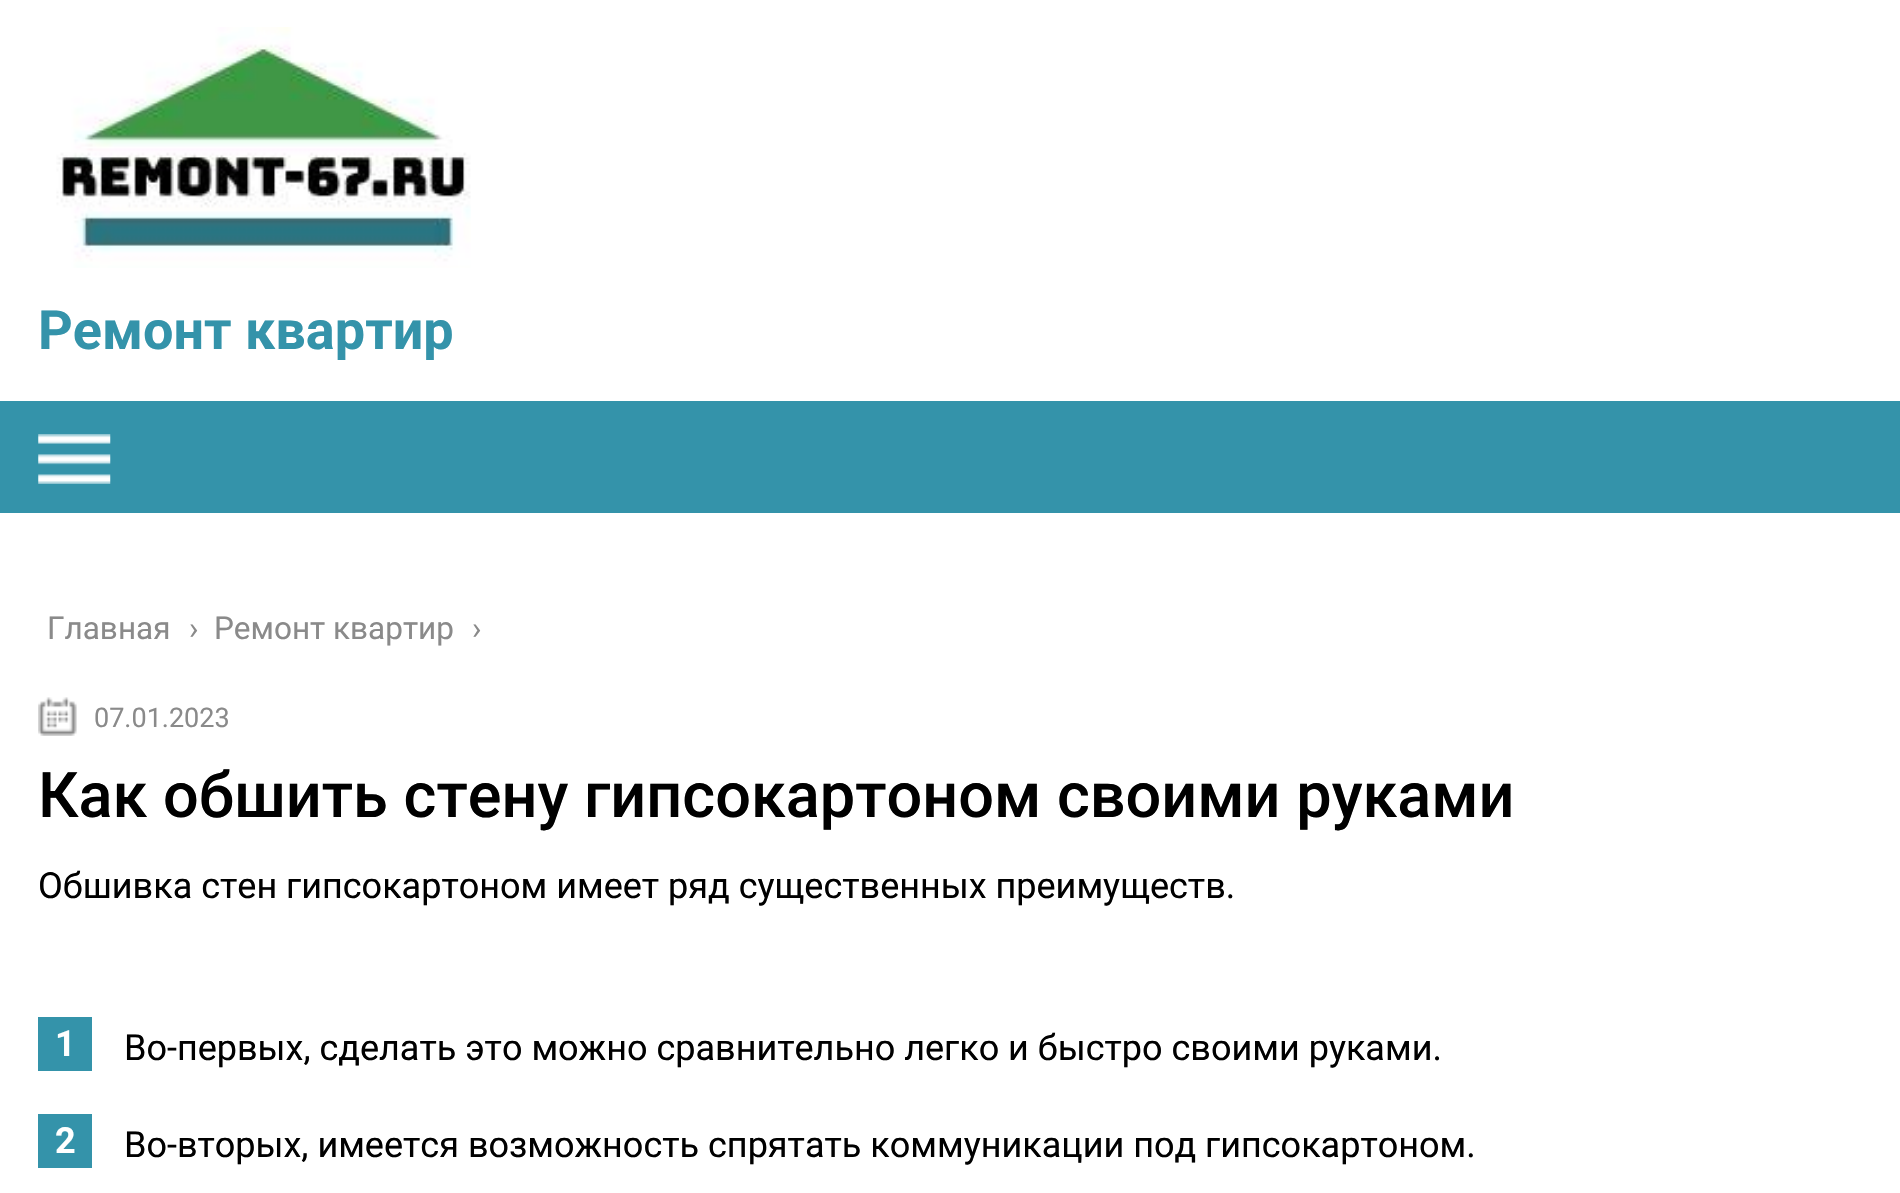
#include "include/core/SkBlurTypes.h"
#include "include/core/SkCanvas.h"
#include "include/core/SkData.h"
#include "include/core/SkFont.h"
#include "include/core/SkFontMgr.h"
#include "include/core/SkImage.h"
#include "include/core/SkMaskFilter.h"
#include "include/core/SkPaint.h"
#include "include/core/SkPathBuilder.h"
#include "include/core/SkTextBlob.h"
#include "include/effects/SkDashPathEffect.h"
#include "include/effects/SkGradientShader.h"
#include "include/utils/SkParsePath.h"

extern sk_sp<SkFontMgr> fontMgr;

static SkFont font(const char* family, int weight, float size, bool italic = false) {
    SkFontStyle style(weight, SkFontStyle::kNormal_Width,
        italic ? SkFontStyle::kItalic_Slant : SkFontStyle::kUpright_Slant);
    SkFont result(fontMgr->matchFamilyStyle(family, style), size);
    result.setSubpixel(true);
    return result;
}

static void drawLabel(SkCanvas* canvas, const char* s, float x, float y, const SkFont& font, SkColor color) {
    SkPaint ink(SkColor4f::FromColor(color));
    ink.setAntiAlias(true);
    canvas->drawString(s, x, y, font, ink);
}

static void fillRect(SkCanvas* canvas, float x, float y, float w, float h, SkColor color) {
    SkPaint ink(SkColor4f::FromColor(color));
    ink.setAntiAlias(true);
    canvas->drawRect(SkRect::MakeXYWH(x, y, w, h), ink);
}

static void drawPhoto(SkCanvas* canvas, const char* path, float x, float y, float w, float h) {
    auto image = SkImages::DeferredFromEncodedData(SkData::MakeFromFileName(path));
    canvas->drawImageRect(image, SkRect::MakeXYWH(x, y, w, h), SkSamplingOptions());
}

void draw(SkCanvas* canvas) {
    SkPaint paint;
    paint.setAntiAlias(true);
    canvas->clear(0xFFFFFFFF);
    drawPhoto(canvas, "assets/img1.png", 56, 27, 415, 241);
    SkFont font1 = font("Roboto", 700, 54);
    drawLabel(canvas, "Ремонт квартир", 38, 349, font1, 0xFF3493AA);
    fillRect(canvas, 0, 401, 1900, 112, 0xFF3493AA);
    drawPhoto(canvas, "assets/img2.png", 38, 434, 73, 50);
    SkFont font2 = font("Roboto", 400, 31.5f);
    drawLabel(canvas, "Главная", 47, 639, font2, 0xFF8A8A8A);
    drawLabel(canvas, "›", 189, 639, font2, 0xFF8A8A8A);
    drawLabel(canvas, "Ремонт квартир", 214, 639, font2, 0xFF8A8A8A);
    drawLabel(canvas, "›", 472, 639, font2, 0xFF8A8A8A);
    drawPhoto(canvas, "assets/img3.png", 38, 697, 39, 39);
    SkFont font3 = font("Roboto", 400, 27);
    drawLabel(canvas, "07.01.2023", 94, 727, font3, 0xFF8A8A8A);
    SkFont font4 = font("Roboto", 500, 63);
    drawLabel(canvas, "Как обшить стену гипсокартоном своими руками", 38, 817, font4, 0xFF000000);
    SkFont font5 = font("Roboto", 400, 36);
    drawLabel(canvas, "Обшивка стен гипсокартоном имеет ряд существенных преимуществ.", 38, 898, font5, 0xFF000000);
    fillRect(canvas, 38, 1017, 54, 54, 0xFF3493AA);
    SkFont font6 = font("Roboto", 700, 36);
    drawLabel(canvas, "1", 55, 1056, font6, 0xFFFFFFFF);
    drawLabel(canvas, "Во-первых, сделать это можно сравнительно легко и быстро своими руками.", 124, 1060, font5, 0xFF000000);
    fillRect(canvas, 38, 1114, 54, 54, 0xFF3493AA);
    drawLabel(canvas, "2", 55, 1153, font6, 0xFFFFFFFF);
    drawLabel(canvas, "Во-вторых, имеется возможность спрятать коммуникации под гипсокартоном.", 124, 1157, font5, 0xFF000000);
}
